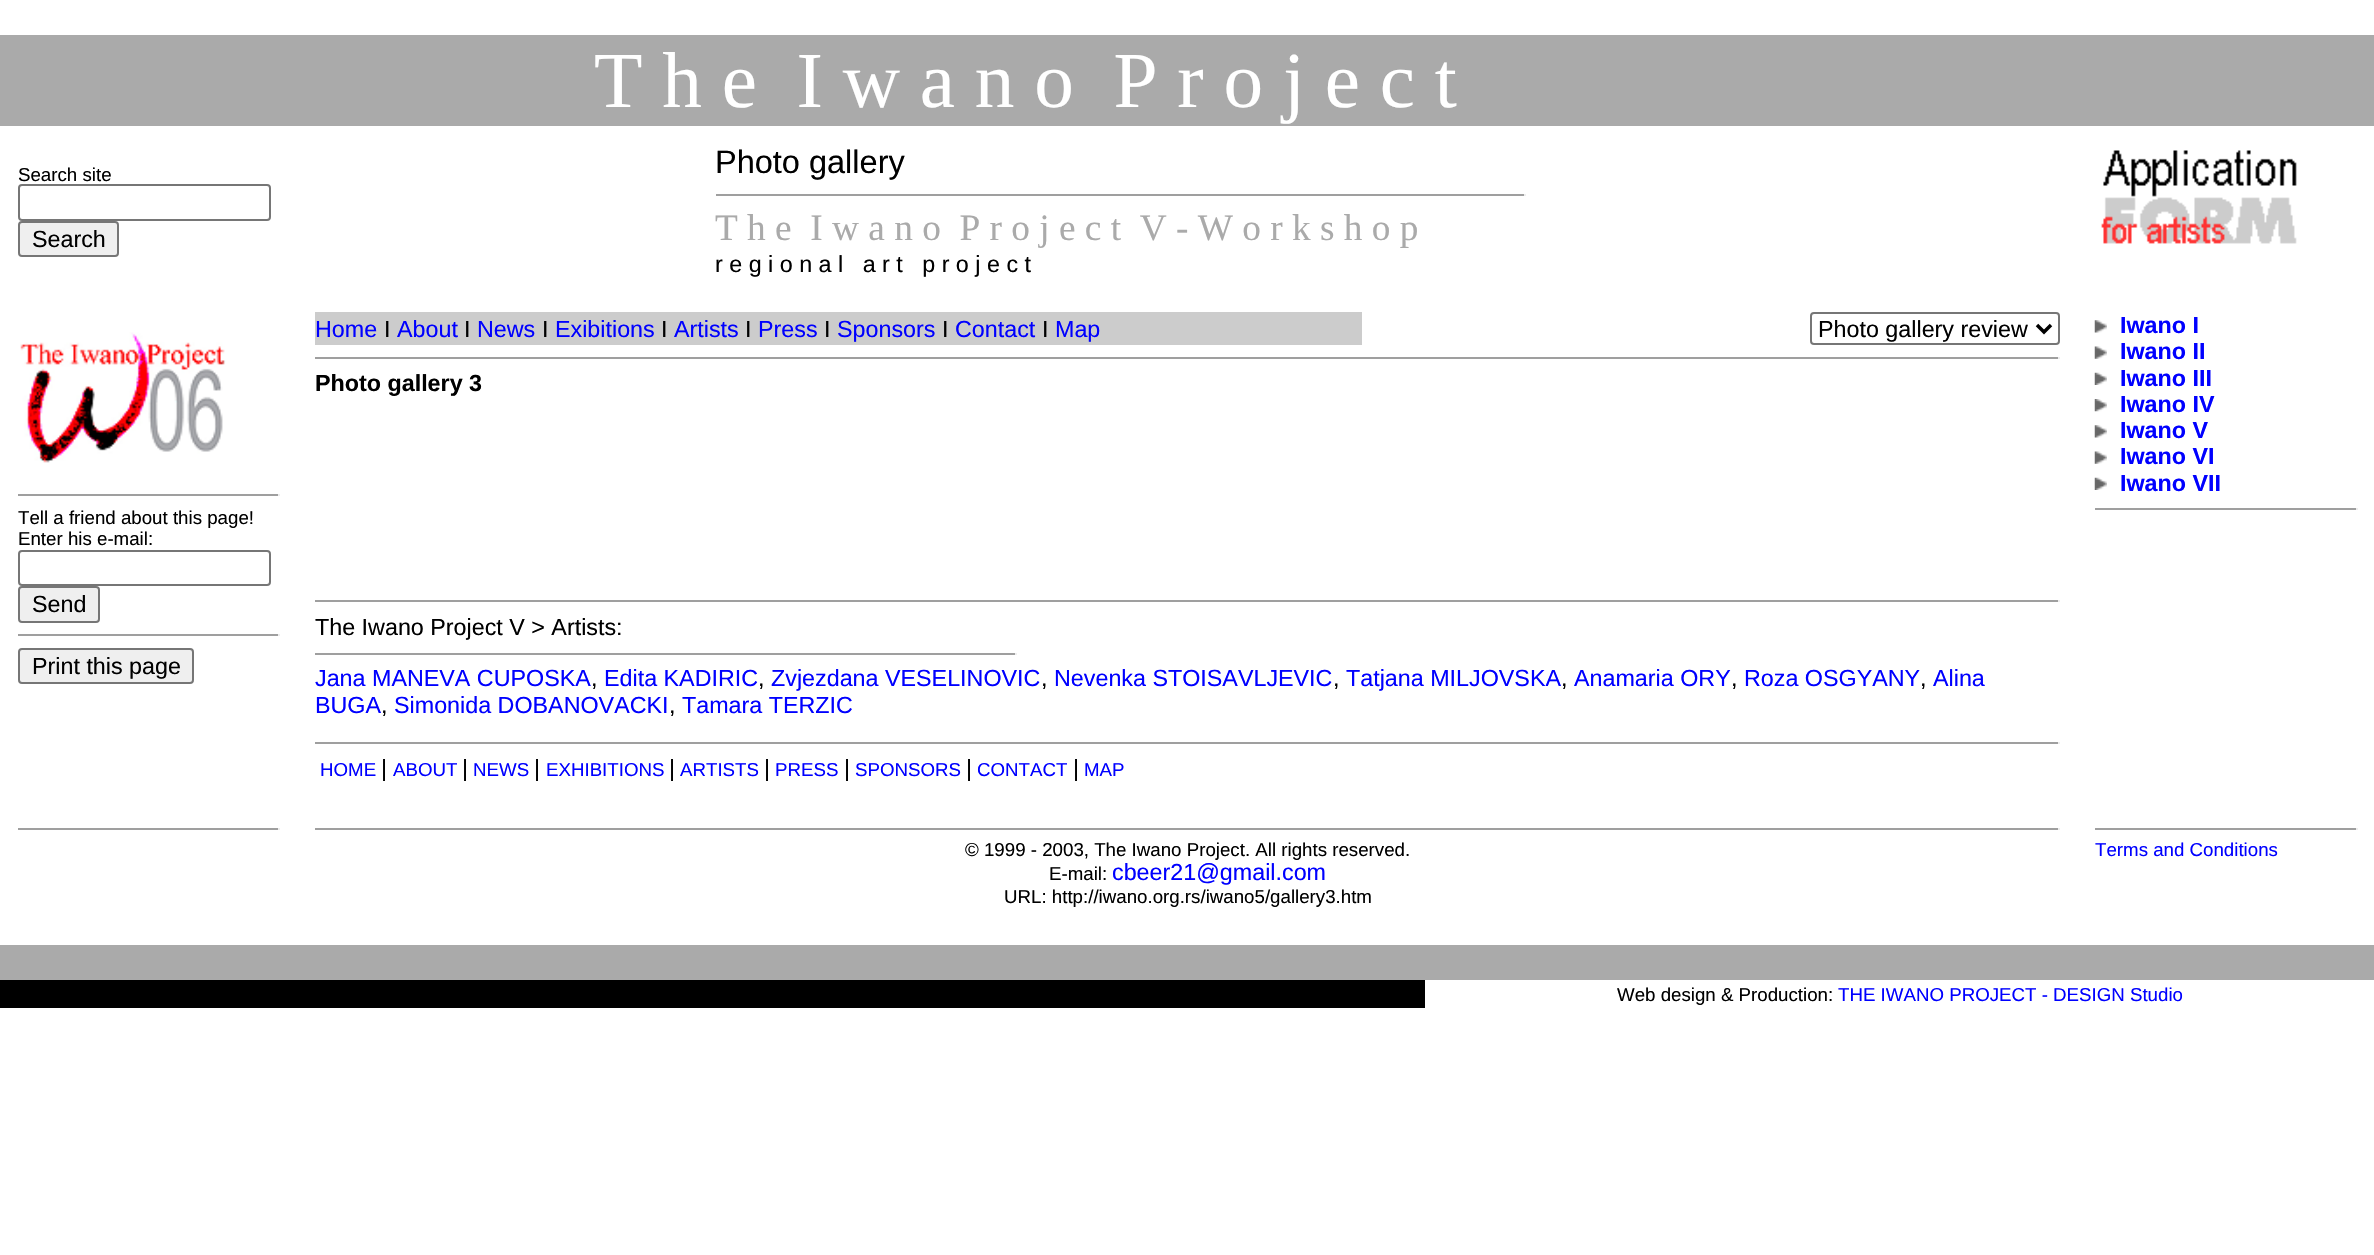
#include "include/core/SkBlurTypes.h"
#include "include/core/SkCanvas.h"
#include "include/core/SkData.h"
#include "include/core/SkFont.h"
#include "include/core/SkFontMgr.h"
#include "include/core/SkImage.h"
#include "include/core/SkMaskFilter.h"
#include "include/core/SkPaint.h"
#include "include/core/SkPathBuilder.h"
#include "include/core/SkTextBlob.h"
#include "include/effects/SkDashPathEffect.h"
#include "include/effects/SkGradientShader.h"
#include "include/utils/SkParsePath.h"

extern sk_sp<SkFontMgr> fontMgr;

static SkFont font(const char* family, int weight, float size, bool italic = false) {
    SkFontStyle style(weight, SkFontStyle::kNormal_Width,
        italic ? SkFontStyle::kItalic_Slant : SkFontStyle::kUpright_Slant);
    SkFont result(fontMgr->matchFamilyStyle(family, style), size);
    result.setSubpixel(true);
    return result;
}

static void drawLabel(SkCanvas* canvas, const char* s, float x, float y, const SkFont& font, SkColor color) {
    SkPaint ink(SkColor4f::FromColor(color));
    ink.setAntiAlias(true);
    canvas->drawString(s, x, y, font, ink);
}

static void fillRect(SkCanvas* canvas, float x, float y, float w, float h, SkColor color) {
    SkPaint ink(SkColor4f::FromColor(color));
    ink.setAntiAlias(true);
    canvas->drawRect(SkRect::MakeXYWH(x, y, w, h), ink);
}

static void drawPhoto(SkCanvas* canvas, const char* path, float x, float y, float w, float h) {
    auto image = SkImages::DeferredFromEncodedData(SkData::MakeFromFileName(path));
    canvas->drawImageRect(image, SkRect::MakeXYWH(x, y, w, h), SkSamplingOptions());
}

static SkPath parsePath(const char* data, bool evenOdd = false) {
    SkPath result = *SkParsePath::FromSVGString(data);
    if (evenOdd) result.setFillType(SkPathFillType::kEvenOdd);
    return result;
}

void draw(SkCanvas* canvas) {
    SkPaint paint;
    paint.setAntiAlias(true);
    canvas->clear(0xFFFFFFFF);
    fillRect(canvas, 0, 35, 2374, 91, 0xFFAAAAAA);
    SkFont font1 = font("Liberation Serif", 400, 79.25f);
    drawLabel(canvas, "T h e  I w a n o  P r o j e c t", 594, 107, font1, 0xFFFFFFFF);
    SkFont font2 = font("Liberation Sans", 400, 18.7f);
    drawLabel(canvas, "Search site", 18, 181, font2, 0xFF000000);
    paint.setStroke(true);
    paint.setStrokeWidth(2);
    paint.setColor(0xFF767676);
    canvas->drawRoundRect(SkRect::MakeXYWH(19, 185, 251, 35), 3, 3, paint);
    paint.setStroke(false);
    paint.setColor(0xFFEFEFEF);
    canvas->drawRoundRect(SkRect::MakeXYWH(19, 222, 99, 34), 3, 3, paint);
    paint.setStroke(true);
    paint.setColor(0xFF767676);
    canvas->drawRoundRect(SkRect::MakeXYWH(19, 222, 99, 34), 3, 3, paint);
    SkFont font3 = font("Liberation Sans", 400, 23.3f);
    drawLabel(canvas, "Search", 32, 247, font3, 0xFF000000);
    SkFont font4 = font("Liberation Sans", 400, 32.5f);
    drawLabel(canvas, "Photo gallery", 715, 173, font4, 0xFF000000);
    fillRect(canvas, 716, 194, 810, 2, 0xFF9F9F9F);
    fillRect(canvas, 1524, 194, 2, 2, 0xFFEEEEEE);
    SkFont font5 = font("Liberation Serif", 400, 37.3f);
    drawLabel(canvas, "T h e  I w a n o  P r o j e c t  V - W o r k s h o p", 715, 240, font5, 0xFFAAAAAA);
    drawLabel(canvas, "r e g i o n a l   a r t   p r o j e c t", 715, 272, font3, 0xFF000000);
    drawPhoto(canvas, "assets/img1.png", 2101, 150, 196, 94);
    drawPhoto(canvas, "assets/img2.png", 20, 332, 206, 131);
    fillRect(canvas, 18, 494, 262, 2, 0xFF9F9F9F);
    fillRect(canvas, 278, 494, 2, 2, 0xFFEEEEEE);
    drawLabel(canvas, "Tell a friend about this page!", 18, 524, font2, 0xFF000000);
    drawLabel(canvas, "Enter his e-mail:", 18, 545, font2, 0xFF000000);
    canvas->drawRoundRect(SkRect::MakeXYWH(19, 551, 251, 34), 3, 3, paint);
    paint.setStroke(false);
    paint.setColor(0xFFEFEFEF);
    canvas->drawRoundRect(SkRect::MakeXYWH(19, 587, 80, 35), 3, 3, paint);
    paint.setStroke(true);
    paint.setColor(0xFF767676);
    canvas->drawRoundRect(SkRect::MakeXYWH(19, 587, 80, 35), 3, 3, paint);
    drawLabel(canvas, "Send", 32, 612, font3, 0xFF000000);
    fillRect(canvas, 18, 634, 262, 2, 0xFF9F9F9F);
    fillRect(canvas, 278, 634, 2, 2, 0xFFEEEEEE);
    paint.setStroke(false);
    paint.setColor(0xFFEFEFEF);
    canvas->drawRoundRect(SkRect::MakeXYWH(19, 649, 174, 34), 3, 3, paint);
    paint.setStroke(true);
    paint.setColor(0xFF767676);
    canvas->drawRoundRect(SkRect::MakeXYWH(19, 649, 174, 34), 3, 3, paint);
    drawLabel(canvas, "Print this page", 32, 674, font3, 0xFF000000);
    fillRect(canvas, 315, 312, 1047, 33, 0xFFCCCCCC);
    drawLabel(canvas, "Home", 315, 337, font3, 0xFF0000FF);
    drawLabel(canvas, "I", 384, 337, font3, 0xFF000000);
    drawLabel(canvas, "About", 397, 337, font3, 0xFF0000FF);
    drawLabel(canvas, "I", 464, 337, font3, 0xFF000000);
    drawLabel(canvas, "News", 477, 337, font3, 0xFF0000FF);
    drawLabel(canvas, "I", 542, 337, font3, 0xFF000000);
    drawLabel(canvas, "Exibitions", 555, 337, font3, 0xFF0000FF);
    drawLabel(canvas, "I", 661, 337, font3, 0xFF000000);
    drawLabel(canvas, "Artists", 674, 337, font3, 0xFF0000FF);
    drawLabel(canvas, "I", 745, 337, font3, 0xFF000000);
    drawLabel(canvas, "Press", 758, 337, font3, 0xFF0000FF);
    drawLabel(canvas, "I", 824, 337, font3, 0xFF000000);
    drawLabel(canvas, "Sponsors", 837, 337, font3, 0xFF0000FF);
    drawLabel(canvas, "I", 942, 337, font3, 0xFF000000);
    drawLabel(canvas, "Contact", 955, 337, font3, 0xFF0000FF);
    drawLabel(canvas, "I", 1042, 337, font3, 0xFF000000);
    drawLabel(canvas, "Map", 1055, 337, font3, 0xFF0000FF);
    canvas->drawRoundRect(SkRect::MakeXYWH(1811, 313, 248, 31), 3, 3, paint);
    paint.setStrokeWidth(3.5f);
    paint.setColor(0xFF000000);
    canvas->drawPath(parsePath("M2037 325L2044 332L2051 325"), paint);
    drawLabel(canvas, "Photo gallery review", 1818, 337, font3, 0xFF000000);
    fillRect(canvas, 315, 357, 1745, 2, 0xFF9F9F9F);
    fillRect(canvas, 2058, 357, 2, 2, 0xFFEEEEEE);
    SkFont font6 = font("Liberation Sans", 700, 23.3f);
    drawLabel(canvas, "Photo gallery 3", 315, 391, font6, 0xFF000000);
    fillRect(canvas, 315, 600, 1745, 2, 0xFF9F9F9F);
    fillRect(canvas, 2058, 600, 2, 2, 0xFFEEEEEE);
    drawLabel(canvas, "The Iwano Project V > Artists:", 315, 635, font3, 0xFF000000);
    fillRect(canvas, 315, 653, 702, 2, 0xFF9F9F9F);
    fillRect(canvas, 1015, 653, 2, 2, 0xFFEEEEEE);
    drawLabel(canvas, "Jana MANEVA CUPOSKA", 315, 686, font3, 0xFF0000FF);
    drawLabel(canvas, ",", 591, 686, font3, 0xFF000000);
    drawLabel(canvas, "Edita KADIRIC", 604, 686, font3, 0xFF0000FF);
    drawLabel(canvas, ",", 758, 686, font3, 0xFF000000);
    drawLabel(canvas, "Zvjezdana VESELINOVIC", 771, 686, font3, 0xFF0000FF);
    drawLabel(canvas, ",", 1041, 686, font3, 0xFF000000);
    drawLabel(canvas, "Nevenka STOISAVLJEVIC", 1054, 686, font3, 0xFF0000FF);
    drawLabel(canvas, ",", 1333, 686, font3, 0xFF000000);
    drawLabel(canvas, "Tatjana MILJOVSKA", 1346, 686, font3, 0xFF0000FF);
    drawLabel(canvas, ",", 1561, 686, font3, 0xFF000000);
    drawLabel(canvas, "Anamaria ORY", 1574, 686, font3, 0xFF0000FF);
    drawLabel(canvas, ",", 1731, 686, font3, 0xFF000000);
    drawLabel(canvas, "Roza OSGYANY", 1744, 686, font3, 0xFF0000FF);
    drawLabel(canvas, ",", 1920, 686, font3, 0xFF000000);
    drawLabel(canvas, "Alina", 1933, 686, font3, 0xFF0000FF);
    drawLabel(canvas, "BUGA", 315, 713, font3, 0xFF0000FF);
    drawLabel(canvas, ",", 381, 713, font3, 0xFF000000);
    drawLabel(canvas, "Simonida DOBANOVACKI", 394, 713, font3, 0xFF0000FF);
    drawLabel(canvas, ",", 669, 713, font3, 0xFF000000);
    drawLabel(canvas, "Tamara TERZIC", 682, 713, font3, 0xFF0000FF);
    fillRect(canvas, 315, 742, 1745, 2, 0xFF9F9F9F);
    fillRect(canvas, 2058, 742, 2, 2, 0xFFEEEEEE);
    drawLabel(canvas, "HOME", 320, 776, font2, 0xFF0000FF);
    drawLabel(canvas, "|", 381, 776, font3, 0xFF000000);
    drawLabel(canvas, "ABOUT", 393, 776, font2, 0xFF0000FF);
    drawLabel(canvas, "|", 462, 776, font3, 0xFF000000);
    drawLabel(canvas, "NEWS", 473, 776, font2, 0xFF0000FF);
    drawLabel(canvas, "|", 534, 776, font3, 0xFF000000);
    drawLabel(canvas, "EXHIBITIONS", 546, 776, font2, 0xFF0000FF);
    drawLabel(canvas, "|", 669, 776, font3, 0xFF000000);
    drawLabel(canvas, "ARTISTS", 680, 776, font2, 0xFF0000FF);
    drawLabel(canvas, "|", 764, 776, font3, 0xFF000000);
    drawLabel(canvas, "PRESS", 775, 776, font2, 0xFF0000FF);
    drawLabel(canvas, "|", 844, 776, font3, 0xFF000000);
    drawLabel(canvas, "SPONSORS", 855, 776, font2, 0xFF0000FF);
    drawLabel(canvas, "|", 966, 776, font3, 0xFF000000);
    drawLabel(canvas, "CONTACT", 977, 776, font2, 0xFF0000FF);
    drawLabel(canvas, "|", 1073, 776, font3, 0xFF000000);
    drawLabel(canvas, "MAP", 1084, 776, font2, 0xFF0000FF);
    drawPhoto(canvas, "assets/img3.png", 2094, 320, 13, 13);
    drawLabel(canvas, "Iwano I", 2120, 333, font6, 0xFF0000FF);
    drawPhoto(canvas, "assets/img4.png", 2094, 346, 13, 13);
    drawLabel(canvas, "Iwano II", 2120, 359, font6, 0xFF0000FF);
    drawPhoto(canvas, "assets/img5.png", 2094, 372, 13, 13);
    drawLabel(canvas, "Iwano III", 2120, 386, font6, 0xFF0000FF);
    drawPhoto(canvas, "assets/img6.png", 2094, 399, 13, 13);
    drawLabel(canvas, "Iwano IV", 2120, 412, font6, 0xFF0000FF);
    drawPhoto(canvas, "assets/img3.png", 2094, 425, 13, 13);
    drawLabel(canvas, "Iwano V", 2120, 438, font6, 0xFF0000FF);
    drawPhoto(canvas, "assets/img4.png", 2094, 451, 13, 13);
    drawLabel(canvas, "Iwano VI", 2120, 464, font6, 0xFF0000FF);
    drawPhoto(canvas, "assets/img5.png", 2094, 477, 13, 13);
    drawLabel(canvas, "Iwano VII", 2120, 491, font6, 0xFF0000FF);
    fillRect(canvas, 2095, 508, 262, 2, 0xFF9F9F9F);
    fillRect(canvas, 2356, 508, 2, 2, 0xFFEEEEEE);
    fillRect(canvas, 18, 828, 262, 2, 0xFF9F9F9F);
    fillRect(canvas, 278, 828, 2, 2, 0xFFEEEEEE);
    fillRect(canvas, 315, 828, 1745, 2, 0xFF9F9F9F);
    fillRect(canvas, 2058, 828, 2, 2, 0xFFEEEEEE);
    drawLabel(canvas, "© 1999 - 2003, The Iwano Project. All rights reserved.", 965, 856, font2, 0xFF000000);
    drawLabel(canvas, "E-mail:", 1049, 880, font2, 0xFF000000);
    drawLabel(canvas, "cbeer21@gmail.com", 1112, 880, font3, 0xFF0000FF);
    drawLabel(canvas, "URL: http://iwano.org.rs/iwano5/gallery3.htm", 1004, 903, font2, 0xFF000000);
    fillRect(canvas, 2095, 828, 262, 2, 0xFF9F9F9F);
    fillRect(canvas, 2356, 828, 2, 2, 0xFFEEEEEE);
    drawLabel(canvas, "Terms and Conditions", 2095, 856, font2, 0xFF0000FF);
    fillRect(canvas, 0, 945, 2374, 35, 0xFFAAAAAA);
    fillRect(canvas, 0, 980, 1425, 28, 0xFF000000);
    drawLabel(canvas, "Web design & Production:", 1617, 1001, font2, 0xFF000000);
    drawLabel(canvas, "THE IWANO PROJECT - DESIGN Studio", 1838, 1001, font2, 0xFF0000FF);
}
